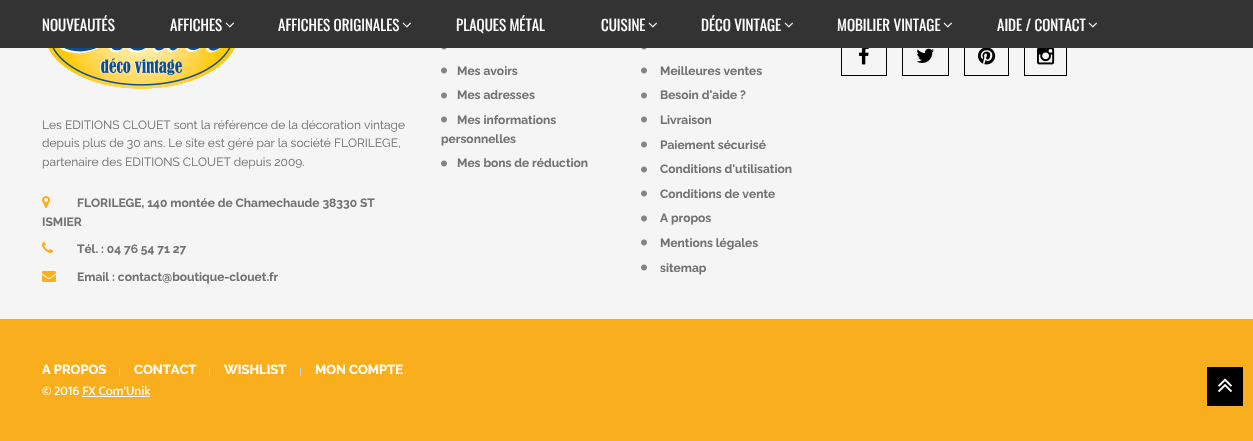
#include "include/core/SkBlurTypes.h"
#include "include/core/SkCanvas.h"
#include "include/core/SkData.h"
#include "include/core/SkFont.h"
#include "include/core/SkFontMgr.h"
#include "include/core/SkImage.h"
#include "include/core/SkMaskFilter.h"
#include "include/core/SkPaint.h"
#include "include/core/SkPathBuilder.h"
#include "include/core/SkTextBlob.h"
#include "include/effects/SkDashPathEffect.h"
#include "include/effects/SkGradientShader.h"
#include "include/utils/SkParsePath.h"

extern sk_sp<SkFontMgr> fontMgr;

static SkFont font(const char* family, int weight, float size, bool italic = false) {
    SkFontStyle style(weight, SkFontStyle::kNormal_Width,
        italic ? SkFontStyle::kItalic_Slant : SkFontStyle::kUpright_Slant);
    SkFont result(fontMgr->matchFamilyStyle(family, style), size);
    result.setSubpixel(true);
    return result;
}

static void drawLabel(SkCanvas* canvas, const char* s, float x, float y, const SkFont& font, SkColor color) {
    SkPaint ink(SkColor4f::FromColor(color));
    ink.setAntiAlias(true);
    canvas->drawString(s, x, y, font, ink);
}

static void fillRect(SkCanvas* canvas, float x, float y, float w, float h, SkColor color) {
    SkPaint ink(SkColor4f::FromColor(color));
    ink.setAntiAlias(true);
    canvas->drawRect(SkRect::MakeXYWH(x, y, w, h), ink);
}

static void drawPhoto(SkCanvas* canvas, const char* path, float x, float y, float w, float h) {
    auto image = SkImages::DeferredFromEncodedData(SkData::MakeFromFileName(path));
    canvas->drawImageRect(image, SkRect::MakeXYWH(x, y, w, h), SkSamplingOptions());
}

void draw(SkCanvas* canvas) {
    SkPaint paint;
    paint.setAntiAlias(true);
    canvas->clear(0xFFF5F5F5);
    paint.setStroke(true);
    paint.setStrokeWidth(1);
    paint.setColor(0xFF000000);
    canvas->drawRect(SkRect::MakeXYWH(841.5f, 37.5f, 45, 38), paint);
    canvas->drawRect(SkRect::MakeXYWH(902.5f, 37.5f, 46, 38), paint);
    canvas->drawRect(SkRect::MakeXYWH(964.5f, 37.5f, 44, 38), paint);
    canvas->drawRect(SkRect::MakeXYWH(1024.5f, 37.5f, 42, 38), paint);
    fillRect(canvas, 0, 0, 1253, 48, 0xFF333333);
    SkFont font1 = font("Oswald", 400, 15);
    drawLabel(canvas, "NOUVEAUTÉS", 42, 31, font1, 0xFFFFFFFF);
    drawLabel(canvas, "AFFICHES", 170, 31, font1, 0xFFFFFFFF);
    drawPhoto(canvas, "assets/img1.png", 225, 22, 9, 6);
    drawLabel(canvas, "AFFICHES ORIGINALES", 278, 31, font1, 0xFFFFFFFF);
    drawPhoto(canvas, "assets/img1.png", 402, 22, 9, 6);
    drawLabel(canvas, "PLAQUES MÉTAL", 456, 31, font1, 0xFFFFFFFF);
    drawLabel(canvas, "CUISINE", 601, 31, font1, 0xFFFFFFFF);
    drawPhoto(canvas, "assets/img1.png", 648, 22, 9, 6);
    drawLabel(canvas, "DÉCO VINTAGE", 701, 31, font1, 0xFFFFFFFF);
    drawPhoto(canvas, "assets/img1.png", 784, 22, 9, 6);
    drawLabel(canvas, "MOBILIER VINTAGE", 837, 31, font1, 0xFFFFFFFF);
    drawPhoto(canvas, "assets/img1.png", 943, 22, 9, 6);
    drawLabel(canvas, "AIDE / CONTACT", 997, 31, font1, 0xFFFFFFFF);
    drawPhoto(canvas, "assets/img1.png", 1088, 22, 9, 6);
    drawPhoto(canvas, "assets/img2.png", 859, 48, 10, 17);
    drawPhoto(canvas, "assets/img3.png", 916, 48, 18, 15);
    drawPhoto(canvas, "assets/img4.png", 978, 48, 18, 17);
    drawPhoto(canvas, "assets/img5.png", 1037, 48, 18, 17);
    drawPhoto(canvas, "assets/img6.png", 48, 48, 187, 41);
    SkFont font2 = font("Raleway", 400, 12);
    drawLabel(canvas, "Les EDITIONS CLOUET sont la référence de la décoration vintage", 42, 129, font2, 0xFF737373);
    drawLabel(canvas, "depuis plus de 30 ans. Le site est géré par la société FLORILEGE,", 42, 147, font2, 0xFF737373);
    drawLabel(canvas, "partenaire des EDITIONS CLOUET depuis 2009.", 42, 166, font2, 0xFF737373);
    drawPhoto(canvas, "assets/img7.png", 42, 196, 8, 12);
    SkFont font3 = font("Raleway", 700, 12);
    drawLabel(canvas, "FLORILEGE, 140 montée de Chamechaude 38330 ST", 77, 207, font3, 0xFF737373);
    drawLabel(canvas, "ISMIER", 42, 226, font3, 0xFF737373);
    drawPhoto(canvas, "assets/img8.png", 42, 242, 11, 11);
    drawLabel(canvas, "Tél. : 04 76 54 71 27", 77, 253, font3, 0xFF737373);
    drawPhoto(canvas, "assets/img9.png", 42, 271, 14, 11);
    drawLabel(canvas, "Email : contact@boutique-clouet.fr", 77, 281, font3, 0xFF737373);
    drawPhoto(canvas, "assets/img10.png", 441, 48, 6, 2);
    drawPhoto(canvas, "assets/img11.png", 441, 67, 6, 7);
    drawLabel(canvas, "Mes avoirs", 457, 75, font3, 0xFF737373);
    drawPhoto(canvas, "assets/img11.png", 441, 92, 6, 7);
    drawLabel(canvas, "Mes adresses", 457, 99, font3, 0xFF737373);
    drawPhoto(canvas, "assets/img11.png", 441, 116, 6, 7);
    drawLabel(canvas, "Mes informations", 457, 124, font3, 0xFF737373);
    drawLabel(canvas, "personnelles", 441, 143, font3, 0xFF737373);
    drawPhoto(canvas, "assets/img11.png", 441, 160, 6, 7);
    drawLabel(canvas, "Mes bons de réduction", 457, 167, font3, 0xFF737373);
    drawPhoto(canvas, "assets/img10.png", 641, 48, 6, 2);
    drawPhoto(canvas, "assets/img11.png", 641, 67, 6, 7);
    drawLabel(canvas, "Meilleures ventes", 660, 75, font3, 0xFF737373);
    drawPhoto(canvas, "assets/img11.png", 641, 92, 6, 7);
    drawLabel(canvas, "Besoin d'aide ?", 660, 99, font3, 0xFF737373);
    drawPhoto(canvas, "assets/img11.png", 641, 116, 6, 7);
    drawLabel(canvas, "Livraison", 660, 124, font3, 0xFF737373);
    drawPhoto(canvas, "assets/img11.png", 641, 141, 6, 7);
    drawLabel(canvas, "Paiement sécurisé", 660, 149, font3, 0xFF737373);
    drawPhoto(canvas, "assets/img11.png", 641, 166, 6, 7);
    drawLabel(canvas, "Conditions d'utilisation", 660, 173, font3, 0xFF737373);
    drawPhoto(canvas, "assets/img11.png", 641, 190, 6, 7);
    drawLabel(canvas, "Conditions de vente", 660, 198, font3, 0xFF737373);
    drawPhoto(canvas, "assets/img11.png", 641, 215, 6, 7);
    drawLabel(canvas, "A propos", 660, 222, font3, 0xFF737373);
    drawPhoto(canvas, "assets/img11.png", 641, 239, 6, 7);
    drawLabel(canvas, "Mentions légales", 660, 247, font3, 0xFF737373);
    drawPhoto(canvas, "assets/img11.png", 641, 264, 6, 7);
    drawLabel(canvas, "sitemap", 660, 272, font3, 0xFF737373);
    fillRect(canvas, 0, 319, 1253, 122, 0xFFF9AE1D);
    SkFont font4 = font("Raleway", 700, 13);
    drawLabel(canvas, "A PROPOS", 42, 374, font4, 0xFFFFFFFF);
    fillRect(canvas, 119, 368, 1, 8, 0xFFCCCCCC);
    drawLabel(canvas, "CONTACT", 134, 374, font4, 0xFFFFFFFF);
    fillRect(canvas, 209, 368, 1, 8, 0xFFCCCCCC);
    drawLabel(canvas, "WISHLIST", 224, 374, font4, 0xFFFFFFFF);
    fillRect(canvas, 300, 368, 1, 8, 0xFFCCCCCC);
    drawLabel(canvas, "MON COMPTE", 315, 374, font4, 0xFFFFFFFF);
    SkFont font5 = font("Ek Mukta", 400, 13);
    drawLabel(canvas, "© 2016 FX Com'Unik", 42, 395, font5, 0xFFFFFFFF);
    fillRect(canvas, 82, 396, 68, 1, 0xFFFFFFFF);
    fillRect(canvas, 1207, 367, 36, 39, 0xFF000000);
    drawPhoto(canvas, "assets/img12.png", 1218, 378, 14, 14);
}
